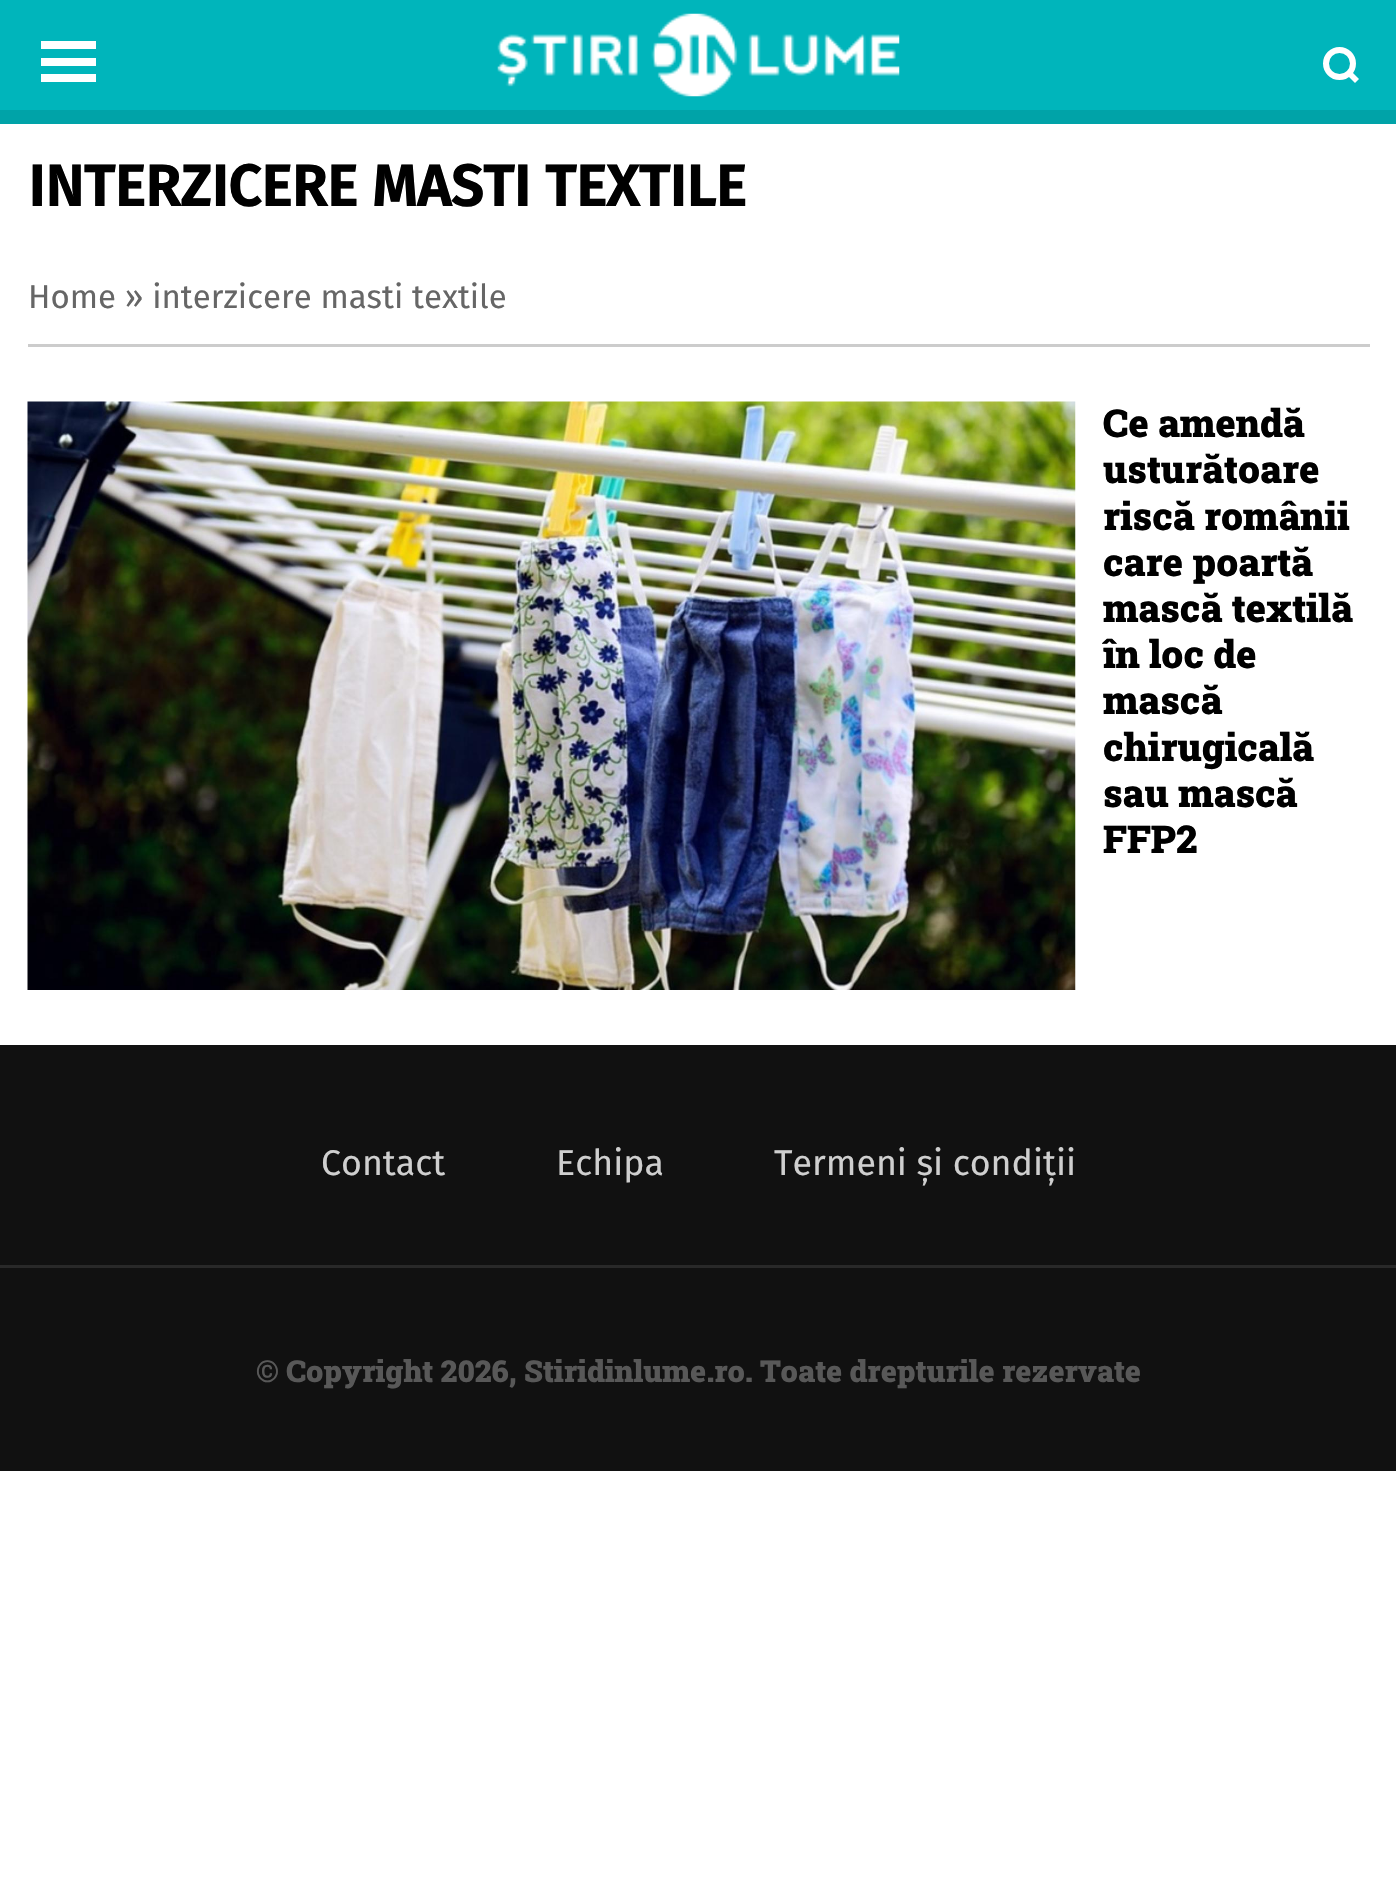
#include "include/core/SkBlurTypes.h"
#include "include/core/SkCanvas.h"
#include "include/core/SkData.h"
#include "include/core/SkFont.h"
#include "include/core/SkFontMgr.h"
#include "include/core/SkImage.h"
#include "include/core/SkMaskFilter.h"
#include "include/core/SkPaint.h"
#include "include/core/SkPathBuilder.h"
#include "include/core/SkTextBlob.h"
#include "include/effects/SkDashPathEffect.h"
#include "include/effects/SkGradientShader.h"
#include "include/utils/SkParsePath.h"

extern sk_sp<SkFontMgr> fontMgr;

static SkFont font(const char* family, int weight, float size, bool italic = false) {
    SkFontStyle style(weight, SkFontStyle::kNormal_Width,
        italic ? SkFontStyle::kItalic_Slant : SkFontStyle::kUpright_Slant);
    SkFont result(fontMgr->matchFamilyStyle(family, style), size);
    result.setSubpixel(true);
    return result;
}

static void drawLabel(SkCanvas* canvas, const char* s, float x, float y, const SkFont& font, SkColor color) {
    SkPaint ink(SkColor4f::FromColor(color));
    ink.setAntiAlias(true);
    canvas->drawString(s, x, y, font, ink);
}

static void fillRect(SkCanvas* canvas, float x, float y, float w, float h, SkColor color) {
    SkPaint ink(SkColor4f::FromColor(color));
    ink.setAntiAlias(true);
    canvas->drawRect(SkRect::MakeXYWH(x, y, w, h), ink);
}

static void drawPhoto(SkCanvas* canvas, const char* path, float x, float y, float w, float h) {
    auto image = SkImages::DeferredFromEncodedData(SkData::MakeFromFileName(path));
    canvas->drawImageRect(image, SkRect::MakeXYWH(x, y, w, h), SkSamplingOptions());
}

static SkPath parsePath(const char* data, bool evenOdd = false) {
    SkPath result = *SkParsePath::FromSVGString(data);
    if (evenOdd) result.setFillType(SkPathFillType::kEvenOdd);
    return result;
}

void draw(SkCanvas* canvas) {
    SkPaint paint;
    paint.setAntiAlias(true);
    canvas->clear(0xFFFFFFFF);
    fillRect(canvas, 0, 0, 1396, 110, 0xFF00B5BB);
    fillRect(canvas, 41, 58, 55, 8, 0xFFFFFFFF);
    fillRect(canvas, 41, 41, 55, 8, 0xFFFFFFFF);
    fillRect(canvas, 41, 74, 55, 8, 0xFFFFFFFF);
    drawPhoto(canvas, "assets/img1.png", 497, 13, 403, 84);
    paint.setStroke(true);
    paint.setStrokeWidth(6);
    paint.setColor(0xFFFFFFFF);
    canvas->drawCircle(1339.5f, 63.5f, 13.5f, paint);
    paint.setStroke(false);
    canvas->drawPath(parsePath("M1347 75L1351 71L1359 79L1355 83Z"), paint);
    fillRect(canvas, 0, 110, 1396, 14, 0xFF00A3A8);
    fillRect(canvas, 28, 344, 1342, 3, 0xFFCCCCCC);
    SkFont font1 = font("Fira Sans", 700, 57.75f);
    drawLabel(canvas, "INTERZICERE MASTI TEXTILE", 28, 206, font1, 0xFF000000);
    SkFont font2 = font("Fira Sans", 400, 33);
    drawLabel(canvas, "Home » interzicere masti textile", 28, 308, font2, 0xFF666666);
    drawPhoto(canvas, "assets/img2.png", 27, 401, 1049, 589);
    SkFont font3 = font("Roboto Slab", 900, 38.5f);
    drawLabel(canvas, "Ce amendă", 1103, 437, font3, 0xFF000000);
    drawLabel(canvas, "usturătoare", 1103, 483, font3, 0xFF000000);
    drawLabel(canvas, "riscă românii", 1103, 530, font3, 0xFF000000);
    drawLabel(canvas, "care poartă", 1103, 576, font3, 0xFF000000);
    drawLabel(canvas, "mască textilă", 1103, 622, font3, 0xFF000000);
    drawLabel(canvas, "în loc de", 1103, 668, font3, 0xFF000000);
    drawLabel(canvas, "mască", 1103, 714, font3, 0xFF000000);
    drawLabel(canvas, "chirugicală", 1103, 761, font3, 0xFF000000);
    drawLabel(canvas, "sau mască", 1103, 807, font3, 0xFF000000);
    drawLabel(canvas, "FFP2", 1103, 853, font3, 0xFF000000);
    fillRect(canvas, 0, 1045, 1396, 426, 0xFF111111);
    SkFont font4 = font("Fira Sans", 400, 35.75f);
    drawLabel(canvas, "Contact", 321, 1175, font4, 0xFFCFCFCF);
    drawLabel(canvas, "Echipa", 556, 1175, font4, 0xFFCFCFCF);
    drawLabel(canvas, "Termeni și condiții", 774, 1175, font4, 0xFFCFCFCF);
    fillRect(canvas, 0, 1265, 1396, 3, 0xFF292929);
    SkFont font5 = font("Roboto Slab", 900, 30.25f);
    drawLabel(canvas, "© Copyright 2026, Stiridinlume.ro. Toate drepturile rezervate", 256, 1382, font5, 0xFF585858);
}
